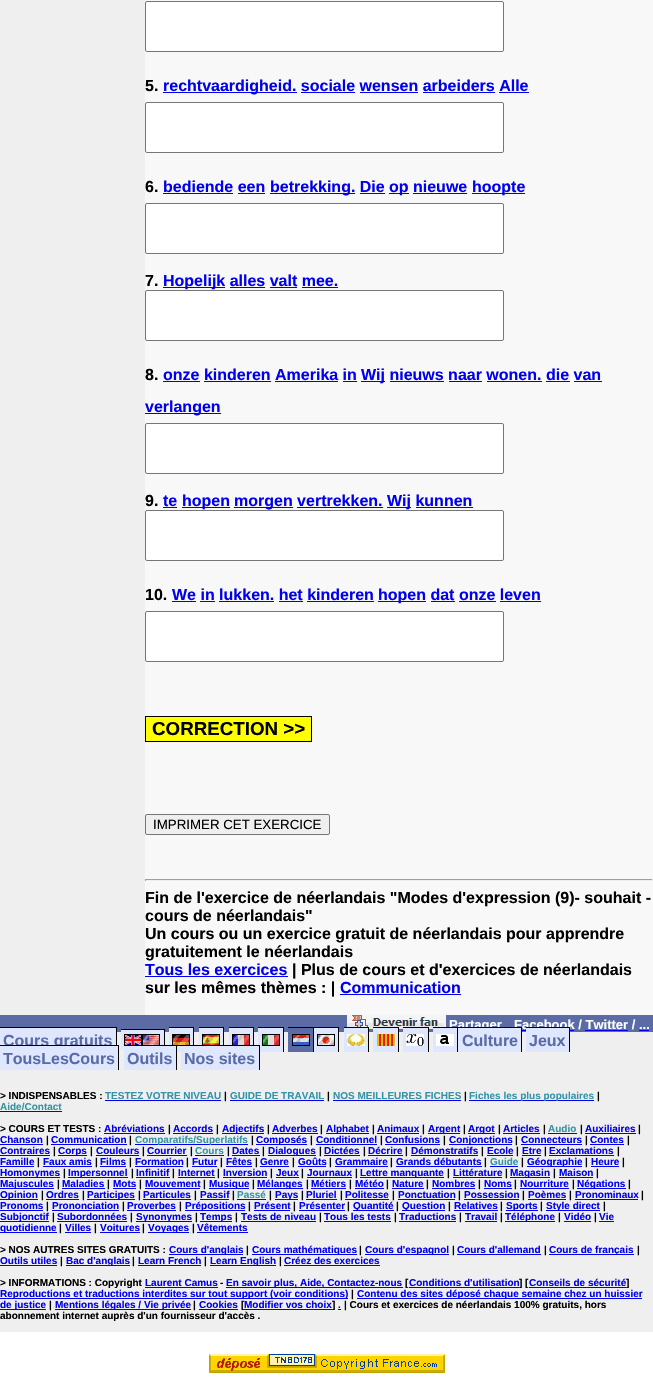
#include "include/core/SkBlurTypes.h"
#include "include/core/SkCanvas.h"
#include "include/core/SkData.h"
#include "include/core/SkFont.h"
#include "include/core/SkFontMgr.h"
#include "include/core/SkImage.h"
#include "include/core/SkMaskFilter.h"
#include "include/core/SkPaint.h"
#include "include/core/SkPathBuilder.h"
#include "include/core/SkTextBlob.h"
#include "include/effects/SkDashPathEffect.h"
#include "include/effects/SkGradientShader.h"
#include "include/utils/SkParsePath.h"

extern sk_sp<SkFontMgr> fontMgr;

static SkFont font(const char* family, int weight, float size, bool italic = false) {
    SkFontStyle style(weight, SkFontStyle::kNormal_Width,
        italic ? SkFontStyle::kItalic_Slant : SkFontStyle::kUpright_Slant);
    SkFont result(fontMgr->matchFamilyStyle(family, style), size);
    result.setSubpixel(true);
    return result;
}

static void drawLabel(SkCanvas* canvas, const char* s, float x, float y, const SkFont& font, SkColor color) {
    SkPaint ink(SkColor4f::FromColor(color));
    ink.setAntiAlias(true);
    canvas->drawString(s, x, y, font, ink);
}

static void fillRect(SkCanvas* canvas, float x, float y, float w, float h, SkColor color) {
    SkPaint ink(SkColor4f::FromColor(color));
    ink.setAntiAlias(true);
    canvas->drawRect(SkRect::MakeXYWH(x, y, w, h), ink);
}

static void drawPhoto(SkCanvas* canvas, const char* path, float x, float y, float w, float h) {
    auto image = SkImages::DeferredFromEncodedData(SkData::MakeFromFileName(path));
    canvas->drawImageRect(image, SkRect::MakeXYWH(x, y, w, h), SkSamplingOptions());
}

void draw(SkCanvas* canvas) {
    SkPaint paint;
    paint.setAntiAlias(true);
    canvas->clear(0xFFFFFFFF);
    fillRect(canvas, 0, 0, 145, 1015, 0xFFEFEFEF);
    fillRect(canvas, 145, 0, 508, 1015, 0xFFF8F8F8);
    paint.setColor(0xFFFFFFFF);
    canvas->drawRoundRect(SkRect::MakeXYWH(145.5f, 1.5f, 358, 50), 1.5f, 1.5f, paint);
    paint.setStroke(true);
    paint.setStrokeWidth(1);
    paint.setColor(0xFF767676);
    canvas->drawRoundRect(SkRect::MakeXYWH(145.5f, 1.5f, 358, 50), 1.5f, 1.5f, paint);
    SkFont font1 = font("Liberation Sans", 700, 16);
    drawLabel(canvas, "5.", 145, 91, font1, 0xFF000000);
    fillRect(canvas, 163, 92, 134, 1, 0xFF0000EE);
    drawLabel(canvas, "rechtvaardigheid. sociale wensen arbeiders Alle", 163, 91, font1, 0xFF0000EE);
    fillRect(canvas, 301, 92, 54, 1, 0xFF0000EE);
    fillRect(canvas, 360, 92, 58, 1, 0xFF0000EE);
    fillRect(canvas, 423, 92, 72, 1, 0xFF0000EE);
    fillRect(canvas, 499, 92, 30, 1, 0xFF0000EE);
    paint.setStroke(false);
    paint.setColor(0xFFFFFFFF);
    canvas->drawRoundRect(SkRect::MakeXYWH(145.5f, 102.5f, 358, 50), 1.5f, 1.5f, paint);
    paint.setStroke(true);
    paint.setColor(0xFF767676);
    canvas->drawRoundRect(SkRect::MakeXYWH(145.5f, 102.5f, 358, 50), 1.5f, 1.5f, paint);
    drawLabel(canvas, "6.", 145, 192, font1, 0xFF000000);
    drawLabel(canvas, "bediende een", 163, 192, font1, 0xFF0000EE);
    fillRect(canvas, 163, 193, 70, 1, 0xFF0000EE);
    fillRect(canvas, 270, 193, 85, 1, 0xFF0000EE);
    drawLabel(canvas, "betrekking. Die", 270, 192, font1, 0xFF0000EE);
    fillRect(canvas, 389, 193, 20, 1, 0xFF0000EE);
    drawLabel(canvas, "op nieuwe", 389, 192, font1, 0xFF0000EE);
    fillRect(canvas, 472, 193, 53, 1, 0xFF0000EE);
    drawLabel(canvas, "hoopte", 472, 192, font1, 0xFF0000EE);
    fillRect(canvas, 238, 193, 27, 1, 0xFF0000EE);
    fillRect(canvas, 360, 193, 25, 1, 0xFF0000EE);
    fillRect(canvas, 413, 193, 54, 1, 0xFF0000EE);
    paint.setStroke(false);
    paint.setColor(0xFFFFFFFF);
    canvas->drawRoundRect(SkRect::MakeXYWH(145.5f, 203.5f, 358, 50), 1.5f, 1.5f, paint);
    paint.setStroke(true);
    paint.setColor(0xFF767676);
    canvas->drawRoundRect(SkRect::MakeXYWH(145.5f, 203.5f, 358, 50), 1.5f, 1.5f, paint);
    drawLabel(canvas, "7.", 145, 286, font1, 0xFF000000);
    fillRect(canvas, 163, 287, 62, 1, 0xFF0000EE);
    drawLabel(canvas, "Hopelijk alles valt mee.", 163, 286, font1, 0xFF0000EE);
    fillRect(canvas, 230, 287, 35, 1, 0xFF0000EE);
    fillRect(canvas, 270, 287, 27, 1, 0xFF0000EE);
    fillRect(canvas, 302, 287, 36, 1, 0xFF0000EE);
    paint.setStroke(false);
    paint.setColor(0xFFFFFFFF);
    canvas->drawRoundRect(SkRect::MakeXYWH(145.5f, 290.5f, 358, 50), 1.5f, 1.5f, paint);
    paint.setStroke(true);
    paint.setColor(0xFF767676);
    canvas->drawRoundRect(SkRect::MakeXYWH(145.5f, 290.5f, 358, 50), 1.5f, 1.5f, paint);
    drawLabel(canvas, "8.", 145, 380, font1, 0xFF000000);
    drawLabel(canvas, "onze kinderen Amerika in", 163, 380, font1, 0xFF0000EE);
    fillRect(canvas, 163, 381, 37, 1, 0xFF0000EE);
    fillRect(canvas, 361, 381, 24, 1, 0xFF0000EE);
    drawLabel(canvas, "Wij nieuws naar wonen. die van", 361, 380, font1, 0xFF0000EE);
    fillRect(canvas, 204, 381, 67, 1, 0xFF0000EE);
    fillRect(canvas, 275, 381, 63, 1, 0xFF0000EE);
    fillRect(canvas, 343, 381, 14, 1, 0xFF0000EE);
    fillRect(canvas, 390, 381, 54, 1, 0xFF0000EE);
    fillRect(canvas, 449, 381, 33, 1, 0xFF0000EE);
    fillRect(canvas, 487, 381, 55, 1, 0xFF0000EE);
    fillRect(canvas, 546, 381, 24, 1, 0xFF0000EE);
    fillRect(canvas, 574, 381, 28, 1, 0xFF0000EE);
    fillRect(canvas, 145, 413, 76, 1, 0xFF0000EE);
    drawLabel(canvas, "verlangen", 145, 412, font1, 0xFF0000EE);
    paint.setStroke(false);
    paint.setColor(0xFFFFFFFF);
    canvas->drawRoundRect(SkRect::MakeXYWH(145.5f, 423.5f, 358, 50), 1.5f, 1.5f, paint);
    paint.setStroke(true);
    paint.setColor(0xFF767676);
    canvas->drawRoundRect(SkRect::MakeXYWH(145.5f, 423.5f, 358, 50), 1.5f, 1.5f, paint);
    drawLabel(canvas, "9.", 145, 506, font1, 0xFF000000);
    drawLabel(canvas, "te", 163, 506, font1, 0xFF0000EE);
    fillRect(canvas, 163, 507, 14, 1, 0xFF0000EE);
    fillRect(canvas, 182, 507, 48, 1, 0xFF0000EE);
    drawLabel(canvas, "hopen", 182, 506, font1, 0xFF0000EE);
    fillRect(canvas, 234, 507, 59, 1, 0xFF0000EE);
    drawLabel(canvas, "morgen vertrekken.", 234, 506, font1, 0xFF0000EE);
    fillRect(canvas, 387, 507, 24, 1, 0xFF0000EE);
    drawLabel(canvas, "Wij kunnen", 387, 506, font1, 0xFF0000EE);
    fillRect(canvas, 297, 507, 86, 1, 0xFF0000EE);
    fillRect(canvas, 416, 507, 57, 1, 0xFF0000EE);
    paint.setStroke(false);
    paint.setColor(0xFFFFFFFF);
    canvas->drawRoundRect(SkRect::MakeXYWH(145.5f, 510.5f, 358, 50), 1.5f, 1.5f, paint);
    paint.setStroke(true);
    paint.setColor(0xFF767676);
    canvas->drawRoundRect(SkRect::MakeXYWH(145.5f, 510.5f, 358, 50), 1.5f, 1.5f, paint);
    drawLabel(canvas, "10.", 145, 600, font1, 0xFF000000);
    drawLabel(canvas, "We in lukken. het kinderen", 172, 600, font1, 0xFF0000EE);
    fillRect(canvas, 172, 601, 24, 1, 0xFF0000EE);
    fillRect(canvas, 378, 601, 48, 1, 0xFF0000EE);
    drawLabel(canvas, "hopen dat onze leven", 378, 600, font1, 0xFF0000EE);
    fillRect(canvas, 200, 601, 15, 1, 0xFF0000EE);
    fillRect(canvas, 219, 601, 55, 1, 0xFF0000EE);
    fillRect(canvas, 279, 601, 24, 1, 0xFF0000EE);
    fillRect(canvas, 307, 601, 67, 1, 0xFF0000EE);
    fillRect(canvas, 431, 601, 24, 1, 0xFF0000EE);
    fillRect(canvas, 459, 601, 37, 1, 0xFF0000EE);
    fillRect(canvas, 500, 601, 41, 1, 0xFF0000EE);
    paint.setStroke(false);
    paint.setColor(0xFFFFFFFF);
    canvas->drawRoundRect(SkRect::MakeXYWH(145.5f, 611.5f, 358, 50), 1.5f, 1.5f, paint);
    paint.setStroke(true);
    paint.setColor(0xFF767676);
    canvas->drawRoundRect(SkRect::MakeXYWH(145.5f, 611.5f, 358, 50), 1.5f, 1.5f, paint);
    paint.setStroke(false);
    paint.setColor(0xFFFFFF00);
    canvas->drawRect(SkRect::MakeXYWH(145.5f, 716.5f, 166, 25), paint);
    paint.setStroke(true);
    paint.setColor(0xFF000000);
    canvas->drawRect(SkRect::MakeXYWH(145.5f, 716.5f, 166, 25), paint);
    SkFont font2 = font("Liberation Sans", 700, 18.75f);
    drawLabel(canvas, "CORRECTION >>", 152, 735, font2, 0xFF000000);
    paint.setStroke(false);
    paint.setColor(0xFFEFEFEF);
    canvas->drawRoundRect(SkRect::MakeXYWH(145.5f, 814.5f, 184, 20), 1.5f, 1.5f, paint);
    paint.setStroke(true);
    paint.setColor(0xFF767676);
    canvas->drawRoundRect(SkRect::MakeXYWH(145.5f, 814.5f, 184, 20), 1.5f, 1.5f, paint);
    SkFont font3 = font("Liberation Sans", 400, 13.3f);
    drawLabel(canvas, "IMPRIMER CET EXERCICE", 153, 829, font3, 0xFF000000);
    fillRect(canvas, 145, 879, 508, 1, 0xFF9F9F9F);
    fillRect(canvas, 652, 879, 1, 2, 0xFFEEEEEE);
    fillRect(canvas, 145, 880, 508, 1, 0xFFEEEEEE);
    fillRect(canvas, 145, 879, 1, 2, 0xFF9F9F9F);
    drawLabel(canvas, "Fin de l'exercice de néerlandais \"Modes d'expression (9)- souhait -", 145, 903, font1, 0xFF000000);
    drawLabel(canvas, "cours de néerlandais\"", 145, 921, font1, 0xFF000000);
    drawLabel(canvas, "Un cours ou un exercice gratuit de néerlandais pour apprendre", 145, 939, font1, 0xFF000000);
    drawLabel(canvas, "gratuitement le néerlandais", 145, 957, font1, 0xFF000000);
    drawLabel(canvas, "Tous les exercices", 145, 975, font1, 0xFF0000EE);
    fillRect(canvas, 145, 976, 143, 1, 0xFF0000EE);
    drawLabel(canvas, "| Plus de cours et d'exercices de néerlandais", 292, 975, font1, 0xFF000000);
    drawLabel(canvas, "sur les mêmes thèmes : |", 145, 993, font1, 0xFF000000);
    drawLabel(canvas, "Communication", 340, 993, font1, 0xFF0000EE);
    fillRect(canvas, 340, 994, 121, 1, 0xFF0000EE);
    fillRect(canvas, 0, 1015, 653, 17, 0xFF5A6BA5);
    drawPhoto(canvas, "assets/img1.png", 347, 1015, 99, 14);
    SkFont font4 = font("Liberation Sans", 700, 13);
    drawLabel(canvas, "Partager", 449, 1029, font4, 0xFFFFFFFF);
    drawLabel(canvas, "Facebook / Twitter / ...", 514, 1029, font4, 0xFFFFFFFF);
    fillRect(canvas, 514, 1030, 60, 1, 0xFF0000EE);
    fillRect(canvas, 585, 1030, 43, 1, 0xFF0000EE);
    fillRect(canvas, 639, 1030, 10, 1, 0xFF0000EE);
    fillRect(canvas, 117, 1032, 536, 36, 0xFFEFEFEF);
    fillRect(canvas, 169, 1027, 25, 1, 0xFF000000);
    fillRect(canvas, 193, 1027, 1, 25, 0xFF000000);
    fillRect(canvas, 199, 1027, 25, 1, 0xFF000000);
    fillRect(canvas, 223, 1027, 1, 25, 0xFF000000);
    fillRect(canvas, 229, 1027, 25, 1, 0xFF000000);
    fillRect(canvas, 253, 1027, 1, 25, 0xFF000000);
    fillRect(canvas, 258, 1027, 26, 1, 0xFF000000);
    fillRect(canvas, 283, 1027, 1, 25, 0xFF000000);
    fillRect(canvas, 288, 1027, 51, 1, 0xFF000000);
    fillRect(canvas, 313, 1027, 1, 25, 0xFF000000);
    fillRect(canvas, 338, 1027, 1, 25, 0xFF000000);
    fillRect(canvas, 344, 1027, 25, 1, 0xFF000000);
    fillRect(canvas, 368, 1027, 1, 25, 0xFF000000);
    fillRect(canvas, 373, 1027, 26, 1, 0xFF000000);
    fillRect(canvas, 398, 1027, 1, 25, 0xFF000000);
    fillRect(canvas, 403, 1027, 26, 1, 0xFF000000);
    fillRect(canvas, 428, 1027, 1, 25, 0xFF000000);
    fillRect(canvas, 433, 1027, 89, 1, 0xFF000000);
    fillRect(canvas, 121, 1029, 44, 1, 0xFF000000);
    fillRect(canvas, 169, 1028, 24, 24, 0xFFDFE7FF);
    fillRect(canvas, 199, 1028, 24, 17, 0xFFDFE7FF);
    fillRect(canvas, 229, 1028, 24, 17, 0xFFDFE7FF);
    fillRect(canvas, 258, 1028, 25, 24, 0xFFDFE7FF);
    fillRect(canvas, 314, 1028, 24, 24, 0xFFDFE7FF);
    fillRect(canvas, 344, 1028, 24, 24, 0xFFDFE7FF);
    fillRect(canvas, 373, 1028, 25, 24, 0xFFDFE7FF);
    fillRect(canvas, 403, 1028, 25, 24, 0xFFDFE7FF);
    fillRect(canvas, 433, 1028, 24, 24, 0xFFDFE7FF);
    fillRect(canvas, 457, 1027, 1, 25, 0xFF000000);
    fillRect(canvas, 0, 1028, 116, 17, 0xFFDFE7FF);
    drawLabel(canvas, "Cours gratuits", 3, 1046, font1, 0xFF5A6BA5);
    fillRect(canvas, 0, 1027, 117, 1, 0xFF000000);
    fillRect(canvas, 116, 1027, 1, 25, 0xFF000000);
    fillRect(canvas, 121, 1030, 21, 19, 0xFFDFE7FF);
    fillRect(canvas, 142, 1030, 22, 15, 0xFFDFE7FF);
    fillRect(canvas, 164, 1029, 1, 20, 0xFF000000);
    fillRect(canvas, 288, 1032, 25, 20, 0xFF5A6BA5);
    drawPhoto(canvas, "assets/img2.png", 124, 1034, 18, 11);
    drawPhoto(canvas, "assets/img3.png", 142, 1034, 18, 11);
    drawPhoto(canvas, "assets/img4.png", 172, 1034, 18, 12);
    drawPhoto(canvas, "assets/img5.png", 202, 1034, 18, 11);
    drawPhoto(canvas, "assets/img6.png", 232, 1034, 18, 11);
    drawPhoto(canvas, "assets/img7.png", 262, 1034, 18, 12);
    drawPhoto(canvas, "assets/img8.png", 292, 1034, 18, 12);
    drawPhoto(canvas, "assets/img9.png", 317, 1034, 18, 12);
    drawPhoto(canvas, "assets/img10.png", 347, 1034, 18, 12);
    drawPhoto(canvas, "assets/img11.png", 377, 1034, 18, 12);
    drawPhoto(canvas, "assets/img12.png", 406, 1034, 18, 12);
    drawPhoto(canvas, "assets/img13.png", 436, 1034, 18, 12);
    fillRect(canvas, 458, 1028, 63, 24, 0xFFDFE7FF);
    drawLabel(canvas, "Culture", 462, 1046, font1, 0xFF5A6BA5);
    fillRect(canvas, 521, 1027, 1, 25, 0xFF000000);
    fillRect(canvas, 526, 1028, 43, 24, 0xFFDFE7FF);
    drawLabel(canvas, "Jeux", 529, 1046, font1, 0xFF5A6BA5);
    fillRect(canvas, 526, 1027, 44, 1, 0xFF000000);
    fillRect(canvas, 569, 1027, 1, 25, 0xFF000000);
    fillRect(canvas, 0, 1068, 653, 264, 0xFFEFEFEF);
    fillRect(canvas, 0, 1046, 118, 24, 0xFFDFE7FF);
    drawLabel(canvas, "TousLesCours", 3, 1064, font1, 0xFF5A6BA5);
    fillRect(canvas, 0, 1045, 119, 1, 0xFF000000);
    fillRect(canvas, 118, 1045, 1, 25, 0xFF000000);
    fillRect(canvas, 124, 1046, 52, 24, 0xFFDFE7FF);
    drawLabel(canvas, "Outils", 127, 1064, font1, 0xFF5A6BA5);
    fillRect(canvas, 124, 1045, 53, 1, 0xFF000000);
    fillRect(canvas, 176, 1045, 1, 25, 0xFF000000);
    fillRect(canvas, 181, 1046, 78, 24, 0xFFDFE7FF);
    drawLabel(canvas, "Nos sites", 184, 1064, font1, 0xFF5A6BA5);
    fillRect(canvas, 181, 1045, 79, 1, 0xFF000000);
    fillRect(canvas, 259, 1045, 1, 25, 0xFF000000);
    SkFont font5 = font("Liberation Sans", 700, 10);
    drawLabel(canvas, "> INDISPENSABLES :", 0, 1099, font5, 0xFF000000);
    drawLabel(canvas, "TESTEZ VOTRE NIVEAU", 105, 1099, font5, 0xFF3594A5);
    fillRect(canvas, 105, 1100, 116, 1, 0xFF0000EE);
    drawLabel(canvas, "|", 224, 1099, font5, 0xFF000000);
    drawLabel(canvas, "GUIDE DE TRAVAIL", 230, 1099, font5, 0xFF3594A5);
    fillRect(canvas, 230, 1100, 94, 1, 0xFF0000EE);
    drawLabel(canvas, "|", 327, 1099, font5, 0xFF000000);
    drawLabel(canvas, "NOS MEILLEURES FICHES", 333, 1099, font5, 0xFF3594A5);
    fillRect(canvas, 333, 1100, 128, 1, 0xFF0000EE);
    drawLabel(canvas, "|", 464, 1099, font5, 0xFF000000);
    fillRect(canvas, 469, 1100, 125, 1, 0xFF0000EE);
    drawLabel(canvas, "Fiches les plus populaires", 469, 1099, font5, 0xFF3594A5);
    drawLabel(canvas, "|", 597, 1099, font5, 0xFF000000);
    drawLabel(canvas, "Aide/Contact", 0, 1110, font5, 0xFF3594A5);
    fillRect(canvas, 0, 1111, 62, 1, 0xFF0000EE);
    drawLabel(canvas, "> COURS ET TESTS :", 0, 1132, font5, 0xFF000000);
    drawLabel(canvas, "Abréviations", 104, 1132, font5, 0xFF0000EE);
    fillRect(canvas, 104, 1133, 61, 1, 0xFF0000EE);
    drawLabel(canvas, "|", 168, 1132, font5, 0xFF000000);
    drawLabel(canvas, "Accords", 173, 1132, font5, 0xFF0000EE);
    fillRect(canvas, 173, 1133, 40, 1, 0xFF0000EE);
    drawLabel(canvas, "|", 216, 1132, font5, 0xFF000000);
    fillRect(canvas, 222, 1133, 42, 1, 0xFF0000EE);
    drawLabel(canvas, "Adjectifs", 222, 1132, font5, 0xFF0000EE);
    drawLabel(canvas, "|", 267, 1132, font5, 0xFF000000);
    drawLabel(canvas, "Adverbes", 272, 1132, font5, 0xFF0000EE);
    fillRect(canvas, 272, 1133, 46, 1, 0xFF0000EE);
    drawLabel(canvas, "|", 320, 1132, font5, 0xFF000000);
    fillRect(canvas, 326, 1133, 43, 1, 0xFF0000EE);
    drawLabel(canvas, "Alphabet", 326, 1132, font5, 0xFF0000EE);
    drawLabel(canvas, "|", 372, 1132, font5, 0xFF000000);
    drawLabel(canvas, "Animaux", 377, 1132, font5, 0xFF0000EE);
    fillRect(canvas, 377, 1133, 42, 1, 0xFF0000EE);
    drawLabel(canvas, "|", 422, 1132, font5, 0xFF000000);
    fillRect(canvas, 428, 1133, 32, 1, 0xFF0000EE);
    drawLabel(canvas, "Argent", 428, 1132, font5, 0xFF0000EE);
    drawLabel(canvas, "|", 463, 1132, font5, 0xFF000000);
    fillRect(canvas, 468, 1133, 27, 1, 0xFF0000EE);
    drawLabel(canvas, "Argot", 468, 1132, font5, 0xFF0000EE);
    drawLabel(canvas, "|", 498, 1132, font5, 0xFF000000);
    drawLabel(canvas, "Articles", 503, 1132, font5, 0xFF0000EE);
    fillRect(canvas, 503, 1133, 37, 1, 0xFF0000EE);
    drawLabel(canvas, "|", 543, 1132, font5, 0xFF000000);
    drawLabel(canvas, "Audio", 548, 1132, font5, 0xFF3594A5);
    fillRect(canvas, 548, 1133, 29, 1, 0xFF0000EE);
    drawLabel(canvas, "|", 580, 1132, font5, 0xFF000000);
    drawLabel(canvas, "Auxiliaires", 585, 1132, font5, 0xFF0000EE);
    fillRect(canvas, 585, 1133, 51, 1, 0xFF0000EE);
    drawLabel(canvas, "|", 638, 1132, font5, 0xFF000000);
    drawLabel(canvas, "Chanson", 0, 1143, font5, 0xFF0000EE);
    fillRect(canvas, 0, 1144, 43, 1, 0xFF0000EE);
    drawLabel(canvas, "|", 46, 1143, font5, 0xFF000000);
    drawLabel(canvas, "Communication", 51, 1143, font5, 0xFF0000EE);
    fillRect(canvas, 51, 1144, 76, 1, 0xFF0000EE);
    drawLabel(canvas, "|", 129, 1143, font5, 0xFF000000);
    fillRect(canvas, 135, 1144, 113, 1, 0xFF0000EE);
    drawLabel(canvas, "Comparatifs/Superlatifs", 135, 1143, font5, 0xFF3594A5);
    drawLabel(canvas, "|", 251, 1143, font5, 0xFF000000);
    fillRect(canvas, 256, 1144, 51, 1, 0xFF0000EE);
    drawLabel(canvas, "Composés", 256, 1143, font5, 0xFF0000EE);
    drawLabel(canvas, "|", 310, 1143, font5, 0xFF000000);
    drawLabel(canvas, "Conditionnel", 316, 1143, font5, 0xFF0000EE);
    fillRect(canvas, 316, 1144, 61, 1, 0xFF0000EE);
    drawLabel(canvas, "|", 380, 1143, font5, 0xFF000000);
    drawLabel(canvas, "Confusions", 385, 1143, font5, 0xFF0000EE);
    fillRect(canvas, 385, 1144, 55, 1, 0xFF0000EE);
    drawLabel(canvas, "|", 443, 1143, font5, 0xFF000000);
    fillRect(canvas, 449, 1144, 63, 1, 0xFF0000EE);
    drawLabel(canvas, "Conjonctions", 449, 1143, font5, 0xFF0000EE);
    drawLabel(canvas, "|", 515, 1143, font5, 0xFF000000);
    drawLabel(canvas, "Connecteurs", 521, 1143, font5, 0xFF0000EE);
    fillRect(canvas, 521, 1144, 61, 1, 0xFF0000EE);
    drawLabel(canvas, "|", 585, 1143, font5, 0xFF000000);
    drawLabel(canvas, "Contes", 590, 1143, font5, 0xFF0000EE);
    fillRect(canvas, 590, 1144, 34, 1, 0xFF0000EE);
    drawLabel(canvas, "|", 627, 1143, font5, 0xFF000000);
    drawLabel(canvas, "Contraires", 0, 1154, font5, 0xFF0000EE);
    fillRect(canvas, 0, 1155, 50, 1, 0xFF0000EE);
    drawLabel(canvas, "|", 53, 1154, font5, 0xFF000000);
    fillRect(canvas, 58, 1155, 29, 1, 0xFF0000EE);
    drawLabel(canvas, "Corps", 58, 1154, font5, 0xFF0000EE);
    drawLabel(canvas, "|", 90, 1154, font5, 0xFF000000);
    drawLabel(canvas, "Couleurs", 96, 1154, font5, 0xFF0000EE);
    fillRect(canvas, 96, 1155, 43, 1, 0xFF0000EE);
    drawLabel(canvas, "|", 142, 1154, font5, 0xFF000000);
    drawLabel(canvas, "Courrier", 147, 1154, font5, 0xFF0000EE);
    fillRect(canvas, 147, 1155, 40, 1, 0xFF0000EE);
    drawLabel(canvas, "|", 190, 1154, font5, 0xFF000000);
    drawLabel(canvas, "Cours", 195, 1154, font5, 0xFF3594A5);
    fillRect(canvas, 195, 1155, 29, 1, 0xFF0000EE);
    drawLabel(canvas, "|", 227, 1154, font5, 0xFF000000);
    drawLabel(canvas, "Dates", 232, 1154, font5, 0xFF0000EE);
    fillRect(canvas, 232, 1155, 28, 1, 0xFF0000EE);
    drawLabel(canvas, "|", 262, 1154, font5, 0xFF000000);
    fillRect(canvas, 268, 1155, 48, 1, 0xFF0000EE);
    drawLabel(canvas, "Dialogues", 268, 1154, font5, 0xFF0000EE);
    drawLabel(canvas, "|", 319, 1154, font5, 0xFF000000);
    drawLabel(canvas, "Dictées", 324, 1154, font5, 0xFF0000EE);
    fillRect(canvas, 324, 1155, 36, 1, 0xFF0000EE);
    drawLabel(canvas, "|", 363, 1154, font5, 0xFF000000);
    drawLabel(canvas, "Décrire", 368, 1154, font5, 0xFF0000EE);
    fillRect(canvas, 368, 1155, 35, 1, 0xFF0000EE);
    drawLabel(canvas, "|", 405, 1154, font5, 0xFF000000);
    drawLabel(canvas, "Démonstratifs", 411, 1154, font5, 0xFF0000EE);
    fillRect(canvas, 411, 1155, 67, 1, 0xFF0000EE);
    drawLabel(canvas, "|", 481, 1154, font5, 0xFF000000);
    drawLabel(canvas, "Ecole", 487, 1154, font5, 0xFF0000EE);
    fillRect(canvas, 487, 1155, 26, 1, 0xFF0000EE);
    drawLabel(canvas, "|", 516, 1154, font5, 0xFF000000);
    drawLabel(canvas, "Etre", 522, 1154, font5, 0xFF0000EE);
    fillRect(canvas, 522, 1155, 19, 1, 0xFF0000EE);
    drawLabel(canvas, "|", 544, 1154, font5, 0xFF000000);
    drawLabel(canvas, "Exclamations", 549, 1154, font5, 0xFF0000EE);
    fillRect(canvas, 549, 1155, 65, 1, 0xFF0000EE);
    drawLabel(canvas, "|", 617, 1154, font5, 0xFF000000);
    drawLabel(canvas, "Famille", 0, 1165, font5, 0xFF0000EE);
    fillRect(canvas, 0, 1166, 34, 1, 0xFF0000EE);
    drawLabel(canvas, "|", 37, 1165, font5, 0xFF000000);
    drawLabel(canvas, "Faux amis", 43, 1165, font5, 0xFF0000EE);
    fillRect(canvas, 43, 1166, 49, 1, 0xFF0000EE);
    drawLabel(canvas, "|", 95, 1165, font5, 0xFF000000);
    drawLabel(canvas, "Films", 100, 1165, font5, 0xFF0000EE);
    fillRect(canvas, 100, 1166, 26, 1, 0xFF0000EE);
    drawLabel(canvas, "|", 129, 1165, font5, 0xFF000000);
    drawLabel(canvas, "Formation", 135, 1165, font5, 0xFF0000EE);
    fillRect(canvas, 135, 1166, 48, 1, 0xFF0000EE);
    drawLabel(canvas, "|", 186, 1165, font5, 0xFF000000);
    drawLabel(canvas, "Futur", 192, 1165, font5, 0xFF0000EE);
    fillRect(canvas, 192, 1166, 25, 1, 0xFF0000EE);
    drawLabel(canvas, "|", 220, 1165, font5, 0xFF000000);
    drawLabel(canvas, "Fêtes", 226, 1165, font5, 0xFF0000EE);
    fillRect(canvas, 226, 1166, 26, 1, 0xFF0000EE);
    drawLabel(canvas, "|", 255, 1165, font5, 0xFF000000);
    drawLabel(canvas, "Genre", 260, 1165, font5, 0xFF0000EE);
    fillRect(canvas, 260, 1166, 29, 1, 0xFF0000EE);
    drawLabel(canvas, "|", 292, 1165, font5, 0xFF000000);
    drawLabel(canvas, "Goûts", 298, 1165, font5, 0xFF0000EE);
    fillRect(canvas, 298, 1166, 28, 1, 0xFF0000EE);
    drawLabel(canvas, "|", 329, 1165, font5, 0xFF000000);
    drawLabel(canvas, "Grammaire", 335, 1165, font5, 0xFF0000EE);
    fillRect(canvas, 335, 1166, 53, 1, 0xFF0000EE);
    drawLabel(canvas, "|", 390, 1165, font5, 0xFF000000);
    drawLabel(canvas, "Grands débutants", 396, 1165, font5, 0xFF0000EE);
    fillRect(canvas, 396, 1166, 86, 1, 0xFF0000EE);
    drawLabel(canvas, "|", 484, 1165, font5, 0xFF000000);
    drawLabel(canvas, "Guide", 490, 1165, font5, 0xFF3594A5);
    fillRect(canvas, 490, 1166, 28, 1, 0xFF0000EE);
    drawLabel(canvas, "|", 521, 1165, font5, 0xFF000000);
    fillRect(canvas, 527, 1166, 55, 1, 0xFF0000EE);
    drawLabel(canvas, "Géographie", 527, 1165, font5, 0xFF0000EE);
    drawLabel(canvas, "|", 585, 1165, font5, 0xFF000000);
    drawLabel(canvas, "Heure", 591, 1165, font5, 0xFF0000EE);
    fillRect(canvas, 591, 1166, 28, 1, 0xFF0000EE);
    drawLabel(canvas, "|", 622, 1165, font5, 0xFF000000);
    fillRect(canvas, 0, 1177, 60, 1, 0xFF0000EE);
    drawLabel(canvas, "Homonymes", 0, 1176, font5, 0xFF0000EE);
    drawLabel(canvas, "|", 63, 1176, font5, 0xFF000000);
    fillRect(canvas, 68, 1177, 60, 1, 0xFF0000EE);
    drawLabel(canvas, "Impersonnel", 68, 1176, font5, 0xFF0000EE);
    drawLabel(canvas, "|", 131, 1176, font5, 0xFF000000);
    drawLabel(canvas, "Infinitif", 136, 1176, font5, 0xFF0000EE);
    fillRect(canvas, 136, 1177, 34, 1, 0xFF0000EE);
    drawLabel(canvas, "|", 172, 1176, font5, 0xFF000000);
    drawLabel(canvas, "Internet", 178, 1176, font5, 0xFF0000EE);
    fillRect(canvas, 178, 1177, 37, 1, 0xFF0000EE);
    drawLabel(canvas, "|", 217, 1176, font5, 0xFF000000);
    drawLabel(canvas, "Inversion", 223, 1176, font5, 0xFF0000EE);
    fillRect(canvas, 223, 1177, 44, 1, 0xFF0000EE);
    drawLabel(canvas, "|", 270, 1176, font5, 0xFF000000);
    drawLabel(canvas, "Jeux", 276, 1176, font5, 0xFF0000EE);
    fillRect(canvas, 276, 1177, 23, 1, 0xFF0000EE);
    drawLabel(canvas, "|", 301, 1176, font5, 0xFF000000);
    drawLabel(canvas, "Journaux", 307, 1176, font5, 0xFF0000EE);
    fillRect(canvas, 307, 1177, 45, 1, 0xFF0000EE);
    drawLabel(canvas, "|", 355, 1176, font5, 0xFF000000);
    fillRect(canvas, 360, 1177, 84, 1, 0xFF0000EE);
    drawLabel(canvas, "Lettre manquante", 360, 1176, font5, 0xFF0000EE);
    drawLabel(canvas, "|", 447, 1176, font5, 0xFF000000);
    drawLabel(canvas, "Littérature", 453, 1176, font5, 0xFF0000EE);
    fillRect(canvas, 453, 1177, 49, 1, 0xFF0000EE);
    drawLabel(canvas, "|", 505, 1176, font5, 0xFF000000);
    fillRect(canvas, 510, 1177, 40, 1, 0xFF0000EE);
    drawLabel(canvas, "Magasin", 510, 1176, font5, 0xFF0000EE);
    drawLabel(canvas, "|", 553, 1176, font5, 0xFF000000);
    drawLabel(canvas, "Maison", 559, 1176, font5, 0xFF0000EE);
    fillRect(canvas, 559, 1177, 34, 1, 0xFF0000EE);
    drawLabel(canvas, "|", 596, 1176, font5, 0xFF000000);
    fillRect(canvas, 0, 1188, 54, 1, 0xFF0000EE);
    drawLabel(canvas, "Majuscules", 0, 1187, font5, 0xFF0000EE);
    drawLabel(canvas, "|", 57, 1187, font5, 0xFF000000);
    drawLabel(canvas, "Maladies", 62, 1187, font5, 0xFF0000EE);
    fillRect(canvas, 62, 1188, 43, 1, 0xFF0000EE);
    drawLabel(canvas, "|", 107, 1187, font5, 0xFF000000);
    drawLabel(canvas, "Mots", 113, 1187, font5, 0xFF0000EE);
    fillRect(canvas, 113, 1188, 23, 1, 0xFF0000EE);
    drawLabel(canvas, "|", 139, 1187, font5, 0xFF000000);
    drawLabel(canvas, "Mouvement", 145, 1187, font5, 0xFF0000EE);
    fillRect(canvas, 145, 1188, 55, 1, 0xFF0000EE);
    drawLabel(canvas, "|", 203, 1187, font5, 0xFF000000);
    fillRect(canvas, 209, 1188, 40, 1, 0xFF0000EE);
    drawLabel(canvas, "Musique", 209, 1187, font5, 0xFF0000EE);
    drawLabel(canvas, "|", 252, 1187, font5, 0xFF000000);
    fillRect(canvas, 257, 1188, 46, 1, 0xFF0000EE);
    drawLabel(canvas, "Mélanges", 257, 1187, font5, 0xFF0000EE);
    drawLabel(canvas, "|", 306, 1187, font5, 0xFF000000);
    drawLabel(canvas, "Métiers", 311, 1187, font5, 0xFF0000EE);
    fillRect(canvas, 311, 1188, 35, 1, 0xFF0000EE);
    drawLabel(canvas, "|", 349, 1187, font5, 0xFF000000);
    drawLabel(canvas, "Météo", 355, 1187, font5, 0xFF0000EE);
    fillRect(canvas, 355, 1188, 29, 1, 0xFF0000EE);
    drawLabel(canvas, "|", 386, 1187, font5, 0xFF000000);
    drawLabel(canvas, "Nature", 392, 1187, font5, 0xFF0000EE);
    fillRect(canvas, 392, 1188, 32, 1, 0xFF0000EE);
    drawLabel(canvas, "|", 426, 1187, font5, 0xFF000000);
    drawLabel(canvas, "Nombres", 432, 1187, font5, 0xFF0000EE);
    fillRect(canvas, 432, 1188, 43, 1, 0xFF0000EE);
    drawLabel(canvas, "|", 478, 1187, font5, 0xFF000000);
    drawLabel(canvas, "Noms", 484, 1187, font5, 0xFF0000EE);
    fillRect(canvas, 484, 1188, 28, 1, 0xFF0000EE);
    drawLabel(canvas, "|", 514, 1187, font5, 0xFF000000);
    drawLabel(canvas, "Nourriture", 520, 1187, font5, 0xFF0000EE);
    fillRect(canvas, 520, 1188, 49, 1, 0xFF0000EE);
    drawLabel(canvas, "|", 572, 1187, font5, 0xFF000000);
    fillRect(canvas, 577, 1188, 49, 1, 0xFF0000EE);
    drawLabel(canvas, "Négations", 577, 1187, font5, 0xFF0000EE);
    drawLabel(canvas, "|", 628, 1187, font5, 0xFF000000);
    fillRect(canvas, 0, 1199, 38, 1, 0xFF0000EE);
    drawLabel(canvas, "Opinion", 0, 1198, font5, 0xFF0000EE);
    drawLabel(canvas, "|", 41, 1198, font5, 0xFF000000);
    drawLabel(canvas, "Ordres", 46, 1198, font5, 0xFF0000EE);
    fillRect(canvas, 46, 1199, 33, 1, 0xFF0000EE);
    drawLabel(canvas, "|", 82, 1198, font5, 0xFF000000);
    fillRect(canvas, 87, 1199, 48, 1, 0xFF0000EE);
    drawLabel(canvas, "Participes", 87, 1198, font5, 0xFF0000EE);
    drawLabel(canvas, "|", 138, 1198, font5, 0xFF000000);
    drawLabel(canvas, "Particules", 143, 1198, font5, 0xFF0000EE);
    fillRect(canvas, 143, 1199, 48, 1, 0xFF0000EE);
    drawLabel(canvas, "|", 194, 1198, font5, 0xFF000000);
    drawLabel(canvas, "Passif", 200, 1198, font5, 0xFF0000EE);
    fillRect(canvas, 200, 1199, 29, 1, 0xFF0000EE);
    drawLabel(canvas, "|", 232, 1198, font5, 0xFF000000);
    drawLabel(canvas, "Passé", 237, 1198, font5, 0xFF3594A5);
    fillRect(canvas, 237, 1199, 29, 1, 0xFF0000EE);
    drawLabel(canvas, "|", 269, 1198, font5, 0xFF000000);
    fillRect(canvas, 275, 1199, 23, 1, 0xFF0000EE);
    drawLabel(canvas, "Pays", 275, 1198, font5, 0xFF0000EE);
    drawLabel(canvas, "|", 301, 1198, font5, 0xFF000000);
    drawLabel(canvas, "Pluriel", 306, 1198, font5, 0xFF0000EE);
    fillRect(canvas, 306, 1199, 31, 1, 0xFF0000EE);
    drawLabel(canvas, "|", 340, 1198, font5, 0xFF000000);
    drawLabel(canvas, "Politesse", 345, 1198, font5, 0xFF0000EE);
    fillRect(canvas, 345, 1199, 44, 1, 0xFF0000EE);
    drawLabel(canvas, "|", 392, 1198, font5, 0xFF000000);
    drawLabel(canvas, "Ponctuation", 398, 1198, font5, 0xFF0000EE);
    fillRect(canvas, 398, 1199, 57, 1, 0xFF0000EE);
    drawLabel(canvas, "|", 458, 1198, font5, 0xFF000000);
    drawLabel(canvas, "Possession", 464, 1198, font5, 0xFF0000EE);
    fillRect(canvas, 464, 1199, 55, 1, 0xFF0000EE);
    drawLabel(canvas, "|", 522, 1198, font5, 0xFF000000);
    drawLabel(canvas, "Poèmes", 528, 1198, font5, 0xFF0000EE);
    fillRect(canvas, 528, 1199, 38, 1, 0xFF0000EE);
    drawLabel(canvas, "|", 569, 1198, font5, 0xFF000000);
    drawLabel(canvas, "Pronominaux", 575, 1198, font5, 0xFF0000EE);
    fillRect(canvas, 575, 1199, 63, 1, 0xFF0000EE);
    drawLabel(canvas, "|", 641, 1198, font5, 0xFF000000);
    drawLabel(canvas, "Pronoms", 0, 1209, font5, 0xFF0000EE);
    fillRect(canvas, 0, 1210, 43, 1, 0xFF0000EE);
    drawLabel(canvas, "|", 46, 1209, font5, 0xFF000000);
    drawLabel(canvas, "Prononciation", 52, 1209, font5, 0xFF0000EE);
    fillRect(canvas, 52, 1210, 67, 1, 0xFF0000EE);
    drawLabel(canvas, "|", 122, 1209, font5, 0xFF000000);
    drawLabel(canvas, "Proverbes", 127, 1209, font5, 0xFF0000EE);
    fillRect(canvas, 127, 1210, 49, 1, 0xFF0000EE);
    drawLabel(canvas, "|", 179, 1209, font5, 0xFF000000);
    fillRect(canvas, 185, 1210, 60, 1, 0xFF0000EE);
    drawLabel(canvas, "Prépositions", 185, 1209, font5, 0xFF0000EE);
    drawLabel(canvas, "|", 248, 1209, font5, 0xFF000000);
    drawLabel(canvas, "Présent", 254, 1209, font5, 0xFF0000EE);
    fillRect(canvas, 254, 1210, 36, 1, 0xFF0000EE);
    drawLabel(canvas, "|", 293, 1209, font5, 0xFF000000);
    drawLabel(canvas, "Présenter", 299, 1209, font5, 0xFF0000EE);
    fillRect(canvas, 299, 1210, 46, 1, 0xFF0000EE);
    drawLabel(canvas, "|", 347, 1209, font5, 0xFF000000);
    fillRect(canvas, 353, 1210, 41, 1, 0xFF0000EE);
    drawLabel(canvas, "Quantité", 353, 1209, font5, 0xFF0000EE);
    drawLabel(canvas, "|", 396, 1209, font5, 0xFF000000);
    fillRect(canvas, 402, 1210, 43, 1, 0xFF0000EE);
    drawLabel(canvas, "Question", 402, 1209, font5, 0xFF0000EE);
    drawLabel(canvas, "|", 448, 1209, font5, 0xFF000000);
    drawLabel(canvas, "Relatives", 454, 1209, font5, 0xFF0000EE);
    fillRect(canvas, 454, 1210, 44, 1, 0xFF0000EE);
    drawLabel(canvas, "|", 500, 1209, font5, 0xFF000000);
    fillRect(canvas, 506, 1210, 32, 1, 0xFF0000EE);
    drawLabel(canvas, "Sports", 506, 1209, font5, 0xFF0000EE);
    drawLabel(canvas, "|", 540, 1209, font5, 0xFF000000);
    fillRect(canvas, 546, 1210, 54, 1, 0xFF0000EE);
    drawLabel(canvas, "Style direct", 546, 1209, font5, 0xFF0000EE);
    drawLabel(canvas, "|", 603, 1209, font5, 0xFF000000);
    fillRect(canvas, 0, 1221, 49, 1, 0xFF0000EE);
    drawLabel(canvas, "Subjonctif", 0, 1220, font5, 0xFF0000EE);
    drawLabel(canvas, "|", 52, 1220, font5, 0xFF000000);
    drawLabel(canvas, "Subordonnées", 57, 1220, font5, 0xFF0000EE);
    fillRect(canvas, 57, 1221, 70, 1, 0xFF0000EE);
    drawLabel(canvas, "|", 130, 1220, font5, 0xFF000000);
    fillRect(canvas, 136, 1221, 56, 1, 0xFF0000EE);
    drawLabel(canvas, "Synonymes", 136, 1220, font5, 0xFF0000EE);
    drawLabel(canvas, "|", 195, 1220, font5, 0xFF000000);
    fillRect(canvas, 200, 1221, 32, 1, 0xFF0000EE);
    drawLabel(canvas, "Temps", 200, 1220, font5, 0xFF0000EE);
    drawLabel(canvas, "|", 235, 1220, font5, 0xFF000000);
    drawLabel(canvas, "Tests de niveau", 241, 1220, font5, 0xFF0000EE);
    fillRect(canvas, 241, 1221, 75, 1, 0xFF0000EE);
    drawLabel(canvas, "|", 319, 1220, font5, 0xFF000000);
    drawLabel(canvas, "Tous les tests", 324, 1220, font5, 0xFF0000EE);
    fillRect(canvas, 324, 1221, 67, 1, 0xFF0000EE);
    drawLabel(canvas, "|", 394, 1220, font5, 0xFF000000);
    drawLabel(canvas, "Traductions", 399, 1220, font5, 0xFF0000EE);
    fillRect(canvas, 399, 1221, 57, 1, 0xFF0000EE);
    drawLabel(canvas, "|", 459, 1220, font5, 0xFF000000);
    drawLabel(canvas, "Travail", 465, 1220, font5, 0xFF0000EE);
    fillRect(canvas, 465, 1221, 32, 1, 0xFF0000EE);
    drawLabel(canvas, "|", 500, 1220, font5, 0xFF000000);
    fillRect(canvas, 505, 1221, 50, 1, 0xFF0000EE);
    drawLabel(canvas, "Téléphone", 505, 1220, font5, 0xFF0000EE);
    drawLabel(canvas, "|", 558, 1220, font5, 0xFF000000);
    drawLabel(canvas, "Vidéo", 564, 1220, font5, 0xFF0000EE);
    fillRect(canvas, 564, 1221, 27, 1, 0xFF0000EE);
    drawLabel(canvas, "|", 594, 1220, font5, 0xFF000000);
    drawLabel(canvas, "Vie", 599, 1220, font5, 0xFF0000EE);
    fillRect(canvas, 599, 1221, 15, 1, 0xFF0000EE);
    fillRect(canvas, 0, 1232, 57, 1, 0xFF0000EE);
    drawLabel(canvas, "quotidienne", 0, 1231, font5, 0xFF0000EE);
    drawLabel(canvas, "|", 59, 1231, font5, 0xFF000000);
    drawLabel(canvas, "Villes", 65, 1231, font5, 0xFF0000EE);
    fillRect(canvas, 65, 1232, 26, 1, 0xFF0000EE);
    drawLabel(canvas, "|", 94, 1231, font5, 0xFF000000);
    drawLabel(canvas, "Voitures", 100, 1231, font5, 0xFF0000EE);
    fillRect(canvas, 100, 1232, 40, 1, 0xFF0000EE);
    drawLabel(canvas, "|", 142, 1231, font5, 0xFF000000);
    fillRect(canvas, 148, 1232, 41, 1, 0xFF0000EE);
    drawLabel(canvas, "Voyages", 148, 1231, font5, 0xFF0000EE);
    drawLabel(canvas, "|", 192, 1231, font5, 0xFF000000);
    drawLabel(canvas, "Vêtements", 197, 1231, font5, 0xFF0000EE);
    fillRect(canvas, 197, 1232, 51, 1, 0xFF0000EE);
    drawLabel(canvas, "> NOS AUTRES SITES GRATUITS :", 0, 1253, font5, 0xFF000000);
    fillRect(canvas, 169, 1254, 74, 1, 0xFF0000EE);
    drawLabel(canvas, "Cours d'anglais", 169, 1253, font5, 0xFF0000EE);
    drawLabel(canvas, "|", 246, 1253, font5, 0xFF000000);
    fillRect(canvas, 252, 1254, 105, 1, 0xFF0000EE);
    drawLabel(canvas, "Cours mathématiques", 252, 1253, font5, 0xFF0000EE);
    drawLabel(canvas, "|", 359, 1253, font5, 0xFF000000);
    fillRect(canvas, 365, 1254, 84, 1, 0xFF0000EE);
    drawLabel(canvas, "Cours d'espagnol", 365, 1253, font5, 0xFF0000EE);
    drawLabel(canvas, "|", 452, 1253, font5, 0xFF000000);
    drawLabel(canvas, "Cours d'allemand", 457, 1253, font5, 0xFF0000EE);
    fillRect(canvas, 457, 1254, 84, 1, 0xFF0000EE);
    drawLabel(canvas, "|", 544, 1253, font5, 0xFF000000);
    fillRect(canvas, 549, 1254, 85, 1, 0xFF0000EE);
    drawLabel(canvas, "Cours de français", 549, 1253, font5, 0xFF0000EE);
    drawLabel(canvas, "|", 637, 1253, font5, 0xFF000000);
    drawLabel(canvas, "Outils utiles", 0, 1264, font5, 0xFF0000EE);
    fillRect(canvas, 0, 1265, 57, 1, 0xFF0000EE);
    drawLabel(canvas, "|", 60, 1264, font5, 0xFF000000);
    fillRect(canvas, 66, 1265, 64, 1, 0xFF0000EE);
    drawLabel(canvas, "Bac d'anglais", 66, 1264, font5, 0xFF0000EE);
    drawLabel(canvas, "|", 132, 1264, font5, 0xFF000000);
    drawLabel(canvas, "Learn French", 138, 1264, font5, 0xFF0000EE);
    fillRect(canvas, 138, 1265, 63, 1, 0xFF0000EE);
    drawLabel(canvas, "|", 204, 1264, font5, 0xFF000000);
    fillRect(canvas, 210, 1265, 66, 1, 0xFF0000EE);
    drawLabel(canvas, "Learn English", 210, 1264, font5, 0xFF0000EE);
    drawLabel(canvas, "|", 279, 1264, font5, 0xFF000000);
    drawLabel(canvas, "Créez des exercices", 284, 1264, font5, 0xFF0000EE);
    fillRect(canvas, 284, 1265, 96, 1, 0xFF0000EE);
    drawLabel(canvas, "> INFORMATIONS : Copyright", 0, 1286, font5, 0xFF000000);
    drawLabel(canvas, "Laurent Camus", 145, 1286, font5, 0xFF0000EE);
    fillRect(canvas, 145, 1287, 73, 1, 0xFF0000EE);
    drawLabel(canvas, "-", 220, 1286, font5, 0xFF000000);
    fillRect(canvas, 226, 1287, 177, 1, 0xFF0000EE);
    drawLabel(canvas, "En savoir plus, Aide, Contactez-nous", 226, 1286, font5, 0xFF0000EE);
    drawLabel(canvas, "[", 405, 1286, font5, 0xFF000000);
    drawLabel(canvas, "Conditions d'utilisation", 409, 1286, font5, 0xFF0000EE);
    fillRect(canvas, 409, 1287, 110, 1, 0xFF0000EE);
    drawLabel(canvas, "] [", 519, 1286, font5, 0xFF000000);
    drawLabel(canvas, "Conseils de sécurité", 529, 1286, font5, 0xFF0000EE);
    fillRect(canvas, 529, 1287, 97, 1, 0xFF0000EE);
    drawLabel(canvas, "]", 626, 1286, font5, 0xFF000000);
    fillRect(canvas, 0, 1298, 348, 1, 0xFF0000EE);
    drawLabel(canvas, "Reproductions et traductions interdites sur tout support (voir conditions)", 0, 1297, font5, 0xFF0000EE);
    drawLabel(canvas, "|", 351, 1297, font5, 0xFF000000);
    fillRect(canvas, 357, 1298, 285, 1, 0xFF0000EE);
    drawLabel(canvas, "Contenu des sites déposé chaque semaine chez un huissier", 357, 1297, font5, 0xFF0000EE);
    fillRect(canvas, 0, 1309, 46, 1, 0xFF0000EE);
    drawLabel(canvas, "de justice", 0, 1308, font5, 0xFF0000EE);
    drawLabel(canvas, "|", 49, 1308, font5, 0xFF000000);
    fillRect(canvas, 55, 1309, 136, 1, 0xFF0000EE);
    drawLabel(canvas, "Mentions légales / Vie privée", 55, 1308, font5, 0xFF0000EE);
    drawLabel(canvas, "|", 193, 1308, font5, 0xFF000000);
    drawLabel(canvas, "Cookies", 199, 1308, font5, 0xFF0000EE);
    fillRect(canvas, 199, 1309, 39, 1, 0xFF0000EE);
    drawLabel(canvas, "[", 241, 1308, font5, 0xFF000000);
    drawLabel(canvas, "Modifier vos choix", 244, 1308, font5, 0xFF0000EE);
    fillRect(canvas, 244, 1309, 88, 1, 0xFF0000EE);
    drawLabel(canvas, "]", 332, 1308, font5, 0xFF000000);
    drawLabel(canvas, ".", 338, 1308, font5, 0xFF0000EE);
    fillRect(canvas, 338, 1309, 3, 1, 0xFF0000EE);
    drawLabel(canvas, "| Cours et exercices de néerlandais 100% gratuits, hors", 344, 1308, font5, 0xFF000000);
    drawLabel(canvas, "abonnement internet auprès d'un fournisseur d'accès .", 0, 1319, font5, 0xFF000000);
    drawPhoto(canvas, "assets/img14.png", 209, 1354, 236, 19);
}
